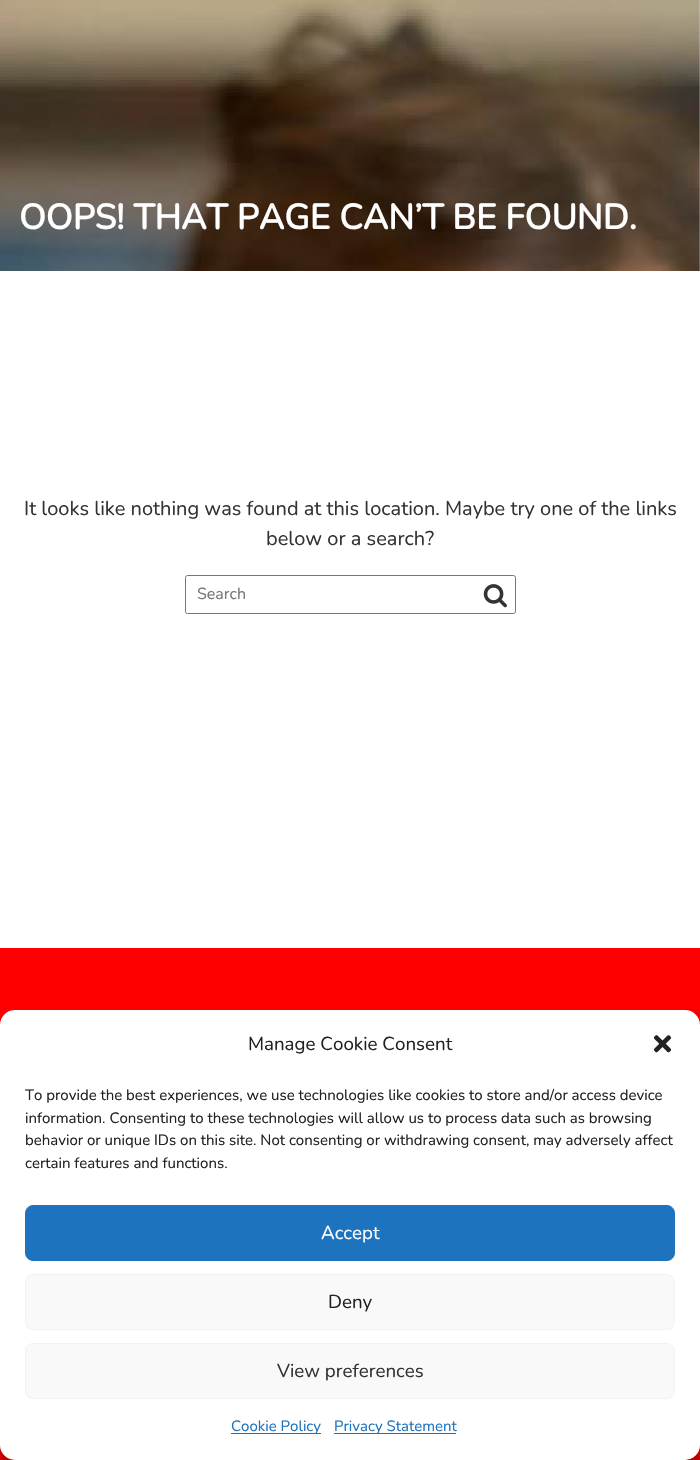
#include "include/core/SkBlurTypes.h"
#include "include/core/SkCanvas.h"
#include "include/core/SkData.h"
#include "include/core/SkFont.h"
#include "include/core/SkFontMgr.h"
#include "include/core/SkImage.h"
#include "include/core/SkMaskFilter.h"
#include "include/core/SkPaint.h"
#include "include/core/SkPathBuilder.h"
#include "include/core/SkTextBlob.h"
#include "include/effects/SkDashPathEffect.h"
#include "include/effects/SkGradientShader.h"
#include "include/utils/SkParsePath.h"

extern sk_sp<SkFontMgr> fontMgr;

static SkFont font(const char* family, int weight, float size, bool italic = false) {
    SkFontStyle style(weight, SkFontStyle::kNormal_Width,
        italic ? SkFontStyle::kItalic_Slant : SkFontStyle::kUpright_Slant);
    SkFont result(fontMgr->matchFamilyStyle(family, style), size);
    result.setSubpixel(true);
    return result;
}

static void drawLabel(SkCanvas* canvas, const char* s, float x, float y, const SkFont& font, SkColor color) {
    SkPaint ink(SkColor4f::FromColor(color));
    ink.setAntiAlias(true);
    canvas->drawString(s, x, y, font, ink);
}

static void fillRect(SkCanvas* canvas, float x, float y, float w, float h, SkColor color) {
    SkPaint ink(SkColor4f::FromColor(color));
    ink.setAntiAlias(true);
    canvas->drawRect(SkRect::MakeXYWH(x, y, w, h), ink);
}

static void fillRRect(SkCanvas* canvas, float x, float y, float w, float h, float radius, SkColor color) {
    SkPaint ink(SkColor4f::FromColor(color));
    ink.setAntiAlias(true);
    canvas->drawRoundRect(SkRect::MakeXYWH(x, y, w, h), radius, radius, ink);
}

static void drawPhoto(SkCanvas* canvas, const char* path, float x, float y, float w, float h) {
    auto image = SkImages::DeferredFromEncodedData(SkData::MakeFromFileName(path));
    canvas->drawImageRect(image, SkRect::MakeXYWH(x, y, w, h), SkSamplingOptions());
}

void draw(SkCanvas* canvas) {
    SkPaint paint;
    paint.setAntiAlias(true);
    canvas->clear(0xFFFFFFFF);
    drawPhoto(canvas, "assets/img1.png", 0, 0, 700, 271);
    SkFont font1 = font("Nunito", 700, 35);
    drawLabel(canvas, "OOPS! THAT PAGE CAN’T BE FOUND.", 19, 229, font1, 0xFFFFFFFF);
    SkFont font2 = font("Nunito", 200, 20);
    drawLabel(canvas, "It looks like nothing was found at this location. Maybe try one of the links", 24, 515, font2, 0xFF333333);
    drawLabel(canvas, "below or a search?", 266, 545, font2, 0xFF333333);
    paint.setStroke(true);
    paint.setStrokeWidth(1);
    paint.setColor(0xFF767676);
    canvas->drawRoundRect(SkRect::MakeXYWH(185.5f, 575.5f, 330, 38), 2, 2, paint);
    SkFont font3 = font("Nunito", 200, 16);
    drawLabel(canvas, "Search", 197, 599, font3, 0xFF757575);
    drawPhoto(canvas, "assets/img2.png", 483, 584, 24, 24);
    fillRect(canvas, 0, 948, 700, 512, 0xFFFF0000);
    paint.setStroke(false);
    paint.setColor(0x3B000000);
    paint.setMaskFilter(SkMaskFilter::MakeBlur(kNormal_SkBlurStyle, 4));
    canvas->drawRoundRect(SkRect::MakeXYWH(0, 1018, 700, 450), 15, 15, paint);
    paint.setMaskFilter(nullptr);
    paint.setColor(0x30000000);
    paint.setMaskFilter(SkMaskFilter::MakeBlur(kNormal_SkBlurStyle, 12.5f));
    canvas->drawRoundRect(SkRect::MakeXYWH(0, 1023, 700, 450), 15, 15, paint);
    paint.setMaskFilter(nullptr);
    fillRRect(canvas, 0, 1010, 700, 450, 15, 0xFFFFFFFF);
    SkFont font4 = font("Nunito", 200, 18.75f);
    drawLabel(canvas, "Manage Cookie Consent", 248, 1050, font4, 0xFF222222);
    drawPhoto(canvas, "assets/img3.png", 653, 1035, 19, 18);
    SkFont font5 = font("Nunito", 200, 15);
    drawLabel(canvas, "To provide the best experiences, we use technologies like cookies to store and/or access device", 25, 1100, font5, 0xFF222222);
    drawLabel(canvas, "information. Consenting to these technologies will allow us to process data such as browsing", 25, 1123, font5, 0xFF222222);
    drawLabel(canvas, "behavior or unique IDs on this site. Not consenting or withdrawing consent, may adversely affect", 25, 1145, font5, 0xFF222222);
    drawLabel(canvas, "certain features and functions.", 25, 1168, font5, 0xFF222222);
    paint.setColor(0xFF1E73BE);
    canvas->drawRoundRect(SkRect::MakeXYWH(25.5f, 1205.5f, 649, 55), 7.5f, 7.5f, paint);
    paint.setStroke(true);
    canvas->drawRoundRect(SkRect::MakeXYWH(25.5f, 1205.5f, 649, 55), 7.5f, 7.5f, paint);
    drawLabel(canvas, "Accept", 321, 1239, font4, 0xFFFFFFFF);
    paint.setStroke(false);
    paint.setColor(0xFFF9F9F9);
    canvas->drawRoundRect(SkRect::MakeXYWH(25.5f, 1274.5f, 649, 55), 7.5f, 7.5f, paint);
    paint.setStroke(true);
    paint.setColor(0xFFF2F2F2);
    canvas->drawRoundRect(SkRect::MakeXYWH(25.5f, 1274.5f, 649, 55), 7.5f, 7.5f, paint);
    drawLabel(canvas, "Deny", 328, 1308, font4, 0xFF222222);
    paint.setStroke(false);
    paint.setColor(0xFFF9F9F9);
    canvas->drawRoundRect(SkRect::MakeXYWH(25.5f, 1343.5f, 649, 55), 7.5f, 7.5f, paint);
    paint.setStroke(true);
    paint.setColor(0xFFF2F2F2);
    canvas->drawRoundRect(SkRect::MakeXYWH(25.5f, 1343.5f, 649, 55), 7.5f, 7.5f, paint);
    drawLabel(canvas, "View preferences", 277, 1377, font4, 0xFF333333);
    fillRect(canvas, 231, 1433, 90, 1, 0xFF1E73BE);
    drawLabel(canvas, "Cookie Policy", 231, 1431, font5, 0xFF1E73BE);
    fillRect(canvas, 334, 1433, 122, 1, 0xFF1E73BE);
    drawLabel(canvas, "Privacy Statement", 334, 1431, font5, 0xFF1E73BE);
}
